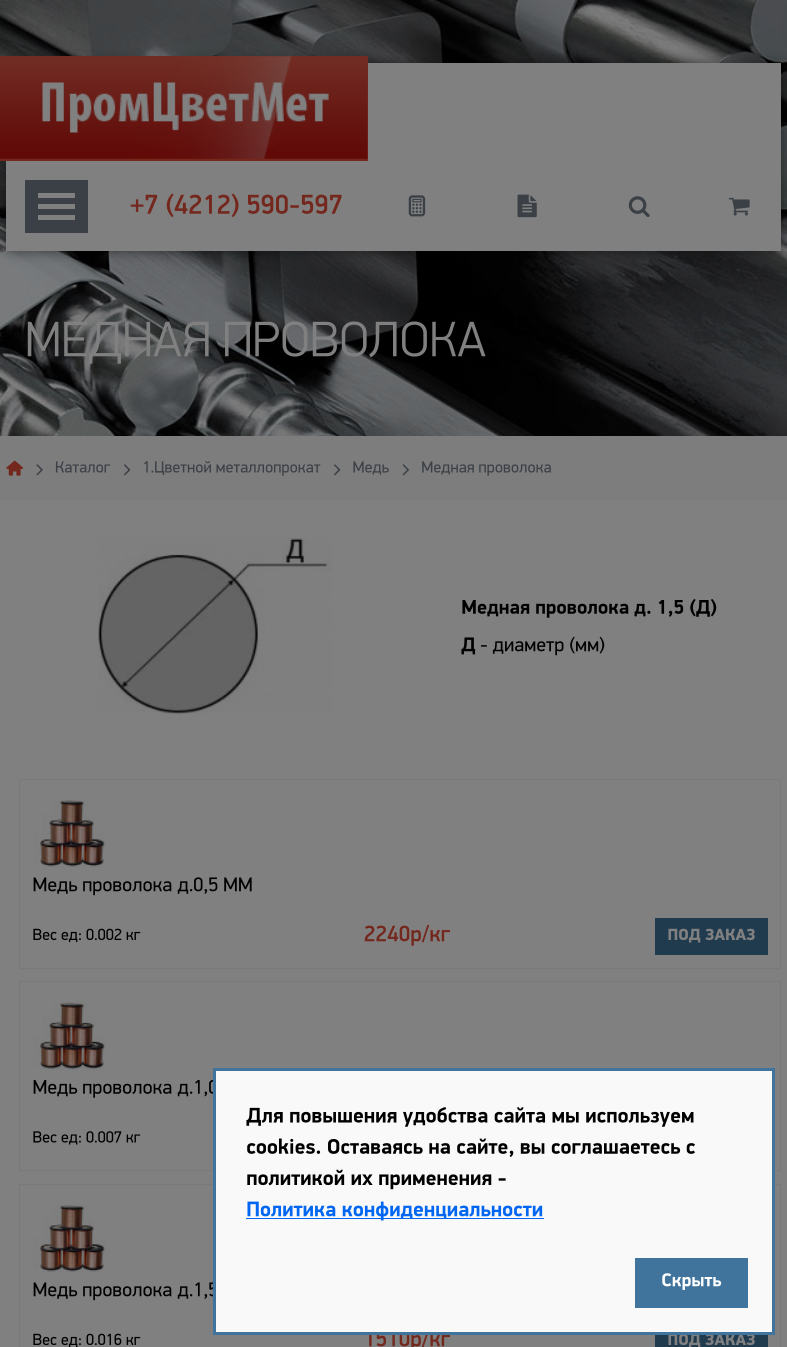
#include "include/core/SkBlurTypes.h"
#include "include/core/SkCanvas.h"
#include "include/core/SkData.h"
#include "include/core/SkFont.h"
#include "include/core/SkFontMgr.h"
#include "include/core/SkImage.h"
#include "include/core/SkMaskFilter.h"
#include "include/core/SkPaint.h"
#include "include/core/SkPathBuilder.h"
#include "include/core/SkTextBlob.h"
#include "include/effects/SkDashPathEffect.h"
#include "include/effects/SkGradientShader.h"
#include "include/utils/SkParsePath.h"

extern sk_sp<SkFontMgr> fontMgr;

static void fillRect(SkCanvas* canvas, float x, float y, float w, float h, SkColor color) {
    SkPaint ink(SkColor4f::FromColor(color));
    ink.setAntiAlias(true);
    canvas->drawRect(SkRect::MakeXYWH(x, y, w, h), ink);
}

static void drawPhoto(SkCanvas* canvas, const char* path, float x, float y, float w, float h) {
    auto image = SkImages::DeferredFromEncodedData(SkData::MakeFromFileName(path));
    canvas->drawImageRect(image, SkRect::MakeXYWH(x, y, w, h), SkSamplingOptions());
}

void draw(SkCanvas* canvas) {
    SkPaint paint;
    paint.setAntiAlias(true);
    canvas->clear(0xFF808080);
    drawPhoto(canvas, "assets/img1.png", 0, 0, 787, 436);
    paint.setColor(0x80000000);
    paint.setMaskFilter(SkMaskFilter::MakeBlur(kNormal_SkBlurStyle, 6));
    canvas->drawRect(SkRect::MakeXYWH(6, 63, 775, 188), paint);
    paint.setMaskFilter(nullptr);
    fillRect(canvas, 6, 63, 775, 188, 0xFF808080);
    fillRect(canvas, 0, 56, 368, 105, 0xFF75271C);
    drawPhoto(canvas, "assets/img2.png", 0, 56, 368, 103);
    fillRect(canvas, 25, 180, 63, 53, 0xFF3B4046);
    fillRect(canvas, 38, 193, 37, 5, 0xFF808080);
    fillRect(canvas, 38, 204, 37, 5, 0xFF808080);
    fillRect(canvas, 38, 215, 37, 5, 0xFF808080);
    drawPhoto(canvas, "assets/img3.png", 130, 193, 212, 25);
    drawPhoto(canvas, "assets/img4.png", 408, 195, 18, 22);
    drawPhoto(canvas, "assets/img5.png", 517, 194, 20, 24);
    drawPhoto(canvas, "assets/img6.png", 628, 196, 22, 22);
    drawPhoto(canvas, "assets/img7.png", 728, 197, 22, 19);
    drawPhoto(canvas, "assets/img8.png", 27, 321, 459, 43);
    fillRect(canvas, 0, 436, 787, 64, 0xFF7D7D7D);
    drawPhoto(canvas, "assets/img9.png", 6, 460, 18, 16);
    drawPhoto(canvas, "assets/img10.png", 36, 464, 7, 12);
    drawPhoto(canvas, "assets/img11.png", 55, 461, 56, 12);
    drawPhoto(canvas, "assets/img12.png", 124, 464, 7, 12);
    drawPhoto(canvas, "assets/img13.png", 144, 461, 177, 15);
    drawPhoto(canvas, "assets/img12.png", 334, 464, 7, 12);
    drawPhoto(canvas, "assets/img14.png", 353, 461, 36, 14);
    drawPhoto(canvas, "assets/img15.png", 402, 464, 8, 12);
    drawPhoto(canvas, "assets/img16.png", 422, 461, 129, 15);
    drawPhoto(canvas, "assets/img17.png", 98, 537, 235, 177);
    drawPhoto(canvas, "assets/img18.png", 462, 599, 248, 19);
    drawPhoto(canvas, "assets/img19.png", 710, 599, 7, 18);
    drawPhoto(canvas, "assets/img20.png", 461, 637, 15, 18);
    drawPhoto(canvas, "assets/img21.png", 481, 636, 124, 20);
    paint.setStroke(true);
    paint.setStrokeWidth(1);
    paint.setColor(0xFF797979);
    canvas->drawRect(SkRect::MakeXYWH(19.5f, 779.5f, 761, 189), paint);
    drawPhoto(canvas, "assets/img22.png", 33, 799, 73, 68);
    drawPhoto(canvas, "assets/img23.png", 33, 877, 139, 19);
    drawPhoto(canvas, "assets/img24.png", 177, 877, 75, 17);
    drawPhoto(canvas, "assets/img25.png", 33, 928, 108, 15);
    drawPhoto(canvas, "assets/img26.png", 364, 924, 86, 22);
    fillRect(canvas, 655, 918, 113, 37, 0xFF203A4E);
    drawPhoto(canvas, "assets/img27.png", 668, 928, 87, 15);
    canvas->drawRect(SkRect::MakeXYWH(19.5f, 981.5f, 761, 189), paint);
    drawPhoto(canvas, "assets/img28.png", 33, 1002, 73, 69);
    drawPhoto(canvas, "assets/img29.png", 33, 1080, 139, 18);
    drawPhoto(canvas, "assets/img30.png", 177, 1079, 36, 18);
    drawPhoto(canvas, "assets/img31.png", 33, 1131, 108, 14);
    canvas->drawRect(SkRect::MakeXYWH(19.5f, 1184.5f, 761, 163), paint);
    drawPhoto(canvas, "assets/img22.png", 33, 1204, 73, 68);
    drawPhoto(canvas, "assets/img23.png", 33, 1282, 139, 19);
    drawPhoto(canvas, "assets/img32.png", 177, 1282, 36, 17);
    drawPhoto(canvas, "assets/img33.png", 33, 1333, 108, 14);
    drawPhoto(canvas, "assets/img34.png", 367, 1335, 83, 12);
    fillRect(canvas, 655, 1335, 113, 12, 0xFF203A4E);
    drawPhoto(canvas, "assets/img35.png", 668, 1335, 87, 12);
    paint.setStroke(false);
    paint.setColor(0xFFF9F9F9);
    canvas->drawRect(SkRect::MakeXYWH(214.5f, 1069.5f, 559, 264), paint);
    paint.setStroke(true);
    paint.setStrokeWidth(3);
    paint.setColor(0xFF40749C);
    canvas->drawRect(SkRect::MakeXYWH(214.5f, 1069.5f, 559, 264), paint);
    drawPhoto(canvas, "assets/img36.png", 246, 1106, 448, 21);
    drawPhoto(canvas, "assets/img37.png", 247, 1138, 448, 19);
    drawPhoto(canvas, "assets/img38.png", 247, 1169, 259, 21);
    fillRect(canvas, 246, 1218, 298, 1, 0xFF0166F2);
    drawPhoto(canvas, "assets/img39.png", 247, 1201, 296, 20);
    fillRect(canvas, 635, 1258, 113, 50, 0xFF40749C);
    drawPhoto(canvas, "assets/img40.png", 662, 1273, 60, 17);
}
